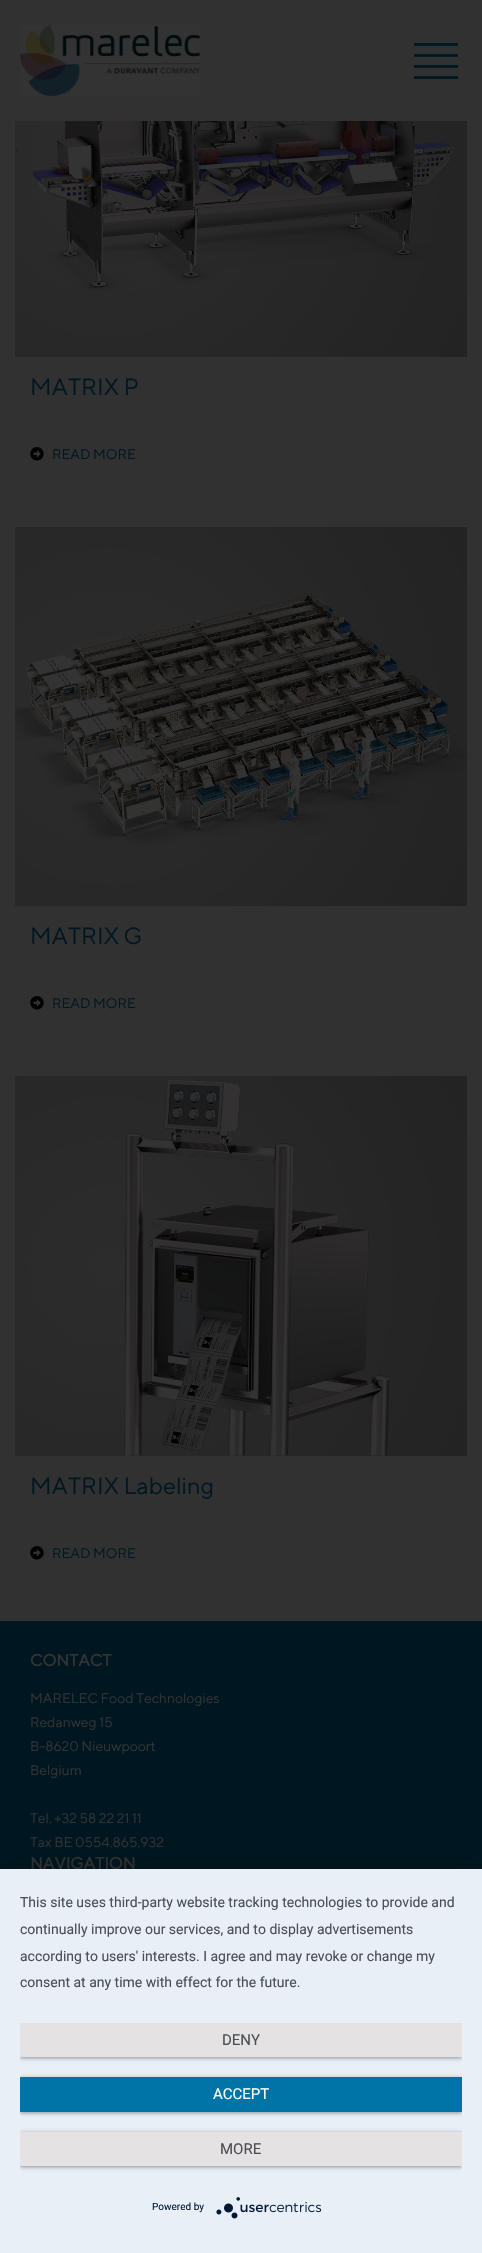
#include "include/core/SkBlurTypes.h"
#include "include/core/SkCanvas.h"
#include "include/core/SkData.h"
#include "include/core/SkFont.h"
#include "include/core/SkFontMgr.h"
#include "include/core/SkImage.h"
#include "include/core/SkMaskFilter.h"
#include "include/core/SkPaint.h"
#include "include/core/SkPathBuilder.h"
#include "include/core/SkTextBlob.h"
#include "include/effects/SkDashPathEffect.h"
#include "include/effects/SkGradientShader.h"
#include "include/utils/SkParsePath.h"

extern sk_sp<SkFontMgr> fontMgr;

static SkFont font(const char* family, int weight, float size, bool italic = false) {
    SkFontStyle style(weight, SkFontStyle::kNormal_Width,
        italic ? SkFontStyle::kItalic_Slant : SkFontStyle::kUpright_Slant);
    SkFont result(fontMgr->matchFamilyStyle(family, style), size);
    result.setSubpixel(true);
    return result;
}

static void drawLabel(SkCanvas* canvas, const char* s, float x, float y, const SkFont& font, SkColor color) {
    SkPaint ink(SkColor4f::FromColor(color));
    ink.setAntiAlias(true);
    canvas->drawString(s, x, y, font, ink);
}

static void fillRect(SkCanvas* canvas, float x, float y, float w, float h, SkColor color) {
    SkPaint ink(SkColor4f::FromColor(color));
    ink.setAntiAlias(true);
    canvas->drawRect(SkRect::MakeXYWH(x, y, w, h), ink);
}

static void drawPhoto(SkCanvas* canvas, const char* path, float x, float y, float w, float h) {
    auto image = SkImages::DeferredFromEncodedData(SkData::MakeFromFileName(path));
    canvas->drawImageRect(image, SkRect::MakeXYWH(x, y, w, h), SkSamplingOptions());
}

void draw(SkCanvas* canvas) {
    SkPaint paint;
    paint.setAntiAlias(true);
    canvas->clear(0xFF313131);
    drawPhoto(canvas, "assets/img1.png", 20, 25, 180, 71);
    drawPhoto(canvas, "assets/img2.png", 414, 43, 44, 36);
    drawPhoto(canvas, "assets/img3.png", 15, 121, 452, 236);
    SkFont font1 = font("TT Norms", 400, 23.5f);
    drawLabel(canvas, "MATRIX P", 30, 395, font1, 0xFF001721);
    drawPhoto(canvas, "assets/img4.png", 30, 447, 14, 14);
    SkFont font2 = font("TT Norms", 400, 13.9f);
    drawLabel(canvas, "READ MORE", 52, 459, font2, 0xFF001721);
    drawPhoto(canvas, "assets/img5.png", 15, 527, 452, 379);
    drawLabel(canvas, "MATRIX G", 30, 944, font1, 0xFF001721);
    drawPhoto(canvas, "assets/img4.png", 30, 996, 14, 14);
    drawLabel(canvas, "READ MORE", 52, 1008, font2, 0xFF001721);
    drawPhoto(canvas, "assets/img6.png", 15, 1076, 452, 380);
    drawLabel(canvas, "MATRIX Labeling", 30, 1494, font1, 0xFF001721);
    drawPhoto(canvas, "assets/img4.png", 30, 1546, 14, 14);
    drawLabel(canvas, "READ MORE", 52, 1558, font2, 0xFF001721);
    fillRect(canvas, 0, 1621, 482, 248, 0xFF001721);
    SkFont font3 = font("TT Norms", 700, 16.5f);
    drawLabel(canvas, "CONTACT", 30, 1666, font3, 0xFF333333);
    drawLabel(canvas, "MARELEC Food Technologies", 30, 1703, font2, 0xFF333333);
    drawLabel(canvas, "Redanweg 15", 30, 1727, font2, 0xFF333333);
    drawLabel(canvas, "B-8620 Nieuwpoort", 30, 1751, font2, 0xFF333333);
    drawLabel(canvas, "Belgium", 30, 1775, font2, 0xFF333333);
    drawLabel(canvas, "Tel. +32 58 22 21 11", 30, 1823, font2, 0xFF333333);
    drawLabel(canvas, "Tax BE 0554.865.932", 30, 1847, font2, 0xFF333333);
    drawLabel(canvas, "NAVIGATION", 30, 1869, font3, 0xFF333333);
    paint.setColor(0x4D000000);
    paint.setMaskFilter(SkMaskFilter::MakeBlur(kNormal_SkBlurStyle, 18));
    canvas->drawRect(SkRect::MakeXYWH(0, 1875, 482, 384), paint);
    paint.setMaskFilter(nullptr);
    fillRect(canvas, 0, 1869, 482, 384, 0xFFE9EFF7);
    SkFont font4 = font("Roboto", 400, 14);
    drawLabel(canvas, "This site uses third-party website tracking technologies to provide and", 20, 1907, font4, 0xFF4B4F53);
    drawLabel(canvas, "continually improve our services, and to display advertisements", 20, 1934, font4, 0xFF4B4F53);
    drawLabel(canvas, "according to users' interests. I agree and may revoke or change my", 20, 1961, font4, 0xFF4B4F53);
    drawLabel(canvas, "consent at any time with effect for the future.", 20, 1987, font4, 0xFF4B4F53);
    canvas->save();
    canvas->clipRect(SkRect::MakeXYWH(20, 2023, 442, 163));
    paint.setColor(0x66000000);
    paint.setMaskFilter(SkMaskFilter::MakeBlur(kNormal_SkBlurStyle, 2));
    canvas->drawRect(SkRect::MakeXYWH(20, 2024, 442, 34), paint);
    paint.setMaskFilter(nullptr);
    canvas->restore();
    fillRect(canvas, 20, 2023, 442, 34, 0xFFE4E2E2);
    SkFont font5 = font("Roboto", 400, 15);
    drawLabel(canvas, "DENY", 222, 2045, font5, 0xFF4B4F53);
    canvas->save();
    canvas->clipRect(SkRect::MakeXYWH(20, 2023, 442, 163));
    paint.setMaskFilter(SkMaskFilter::MakeBlur(kNormal_SkBlurStyle, 2));
    canvas->drawRect(SkRect::MakeXYWH(20, 2078, 442, 35), paint);
    paint.setMaskFilter(nullptr);
    canvas->restore();
    fillRect(canvas, 20, 2077, 442, 35, 0xFF0074A6);
    drawLabel(canvas, "ACCEPT", 213, 2099, font5, 0xFFFFFFFF);
    canvas->save();
    canvas->clipRect(SkRect::MakeXYWH(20, 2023, 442, 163));
    paint.setMaskFilter(SkMaskFilter::MakeBlur(kNormal_SkBlurStyle, 2));
    canvas->drawRect(SkRect::MakeXYWH(20, 2133, 442, 34), paint);
    paint.setMaskFilter(nullptr);
    canvas->restore();
    fillRect(canvas, 20, 2132, 442, 34, 0xFFE4E2E2);
    drawLabel(canvas, "MORE", 220, 2154, font5, 0xFF4B4F53);
    SkFont font6 = font("Roboto", 400, 10);
    drawLabel(canvas, "Powered by", 152, 2210, font6, 0xFF021836);
    drawPhoto(canvas, "assets/img7.png", 216, 2197, 106, 22);
}
